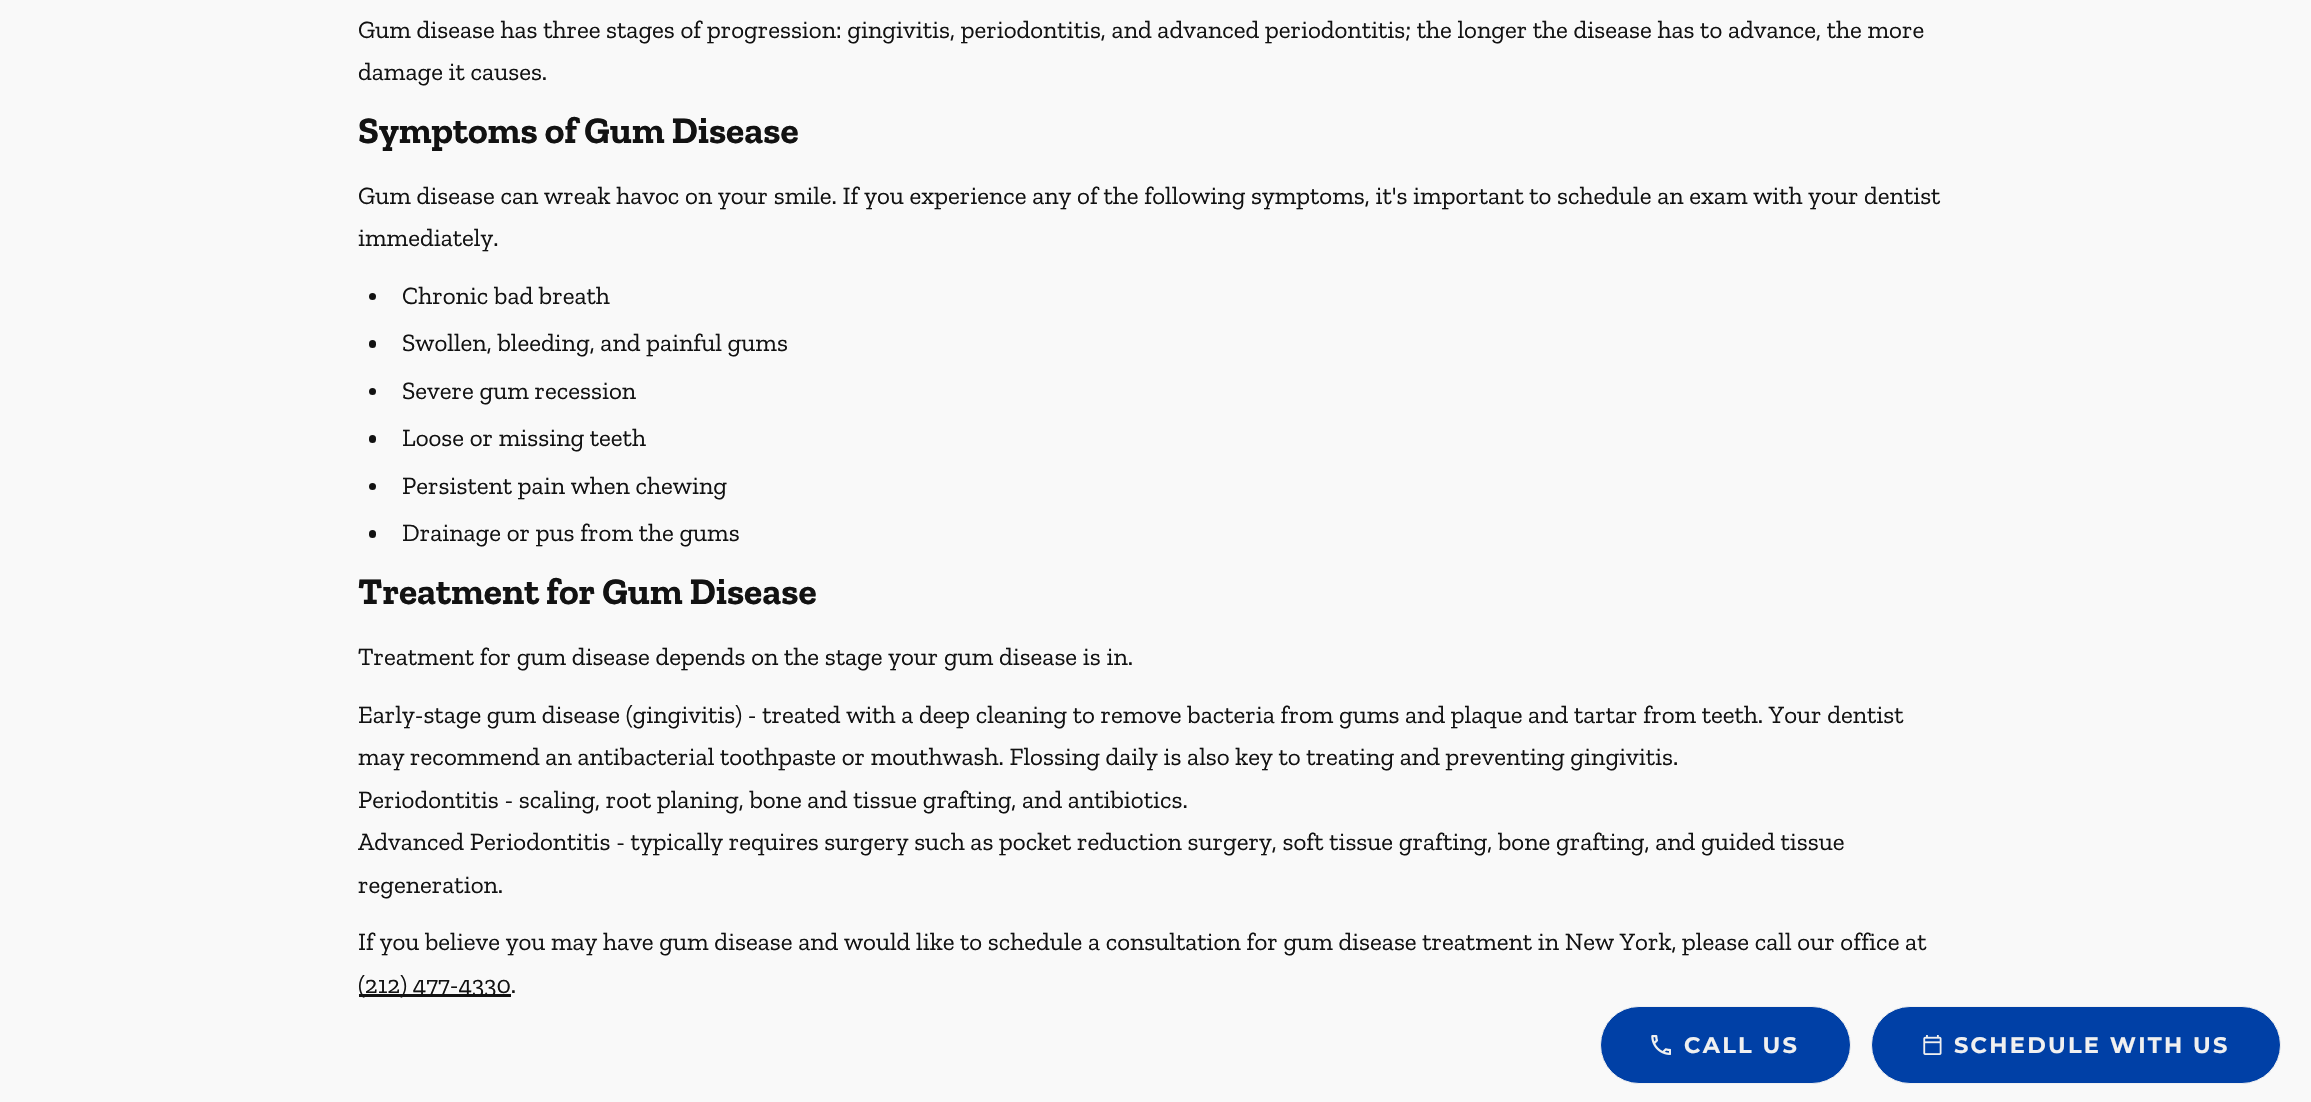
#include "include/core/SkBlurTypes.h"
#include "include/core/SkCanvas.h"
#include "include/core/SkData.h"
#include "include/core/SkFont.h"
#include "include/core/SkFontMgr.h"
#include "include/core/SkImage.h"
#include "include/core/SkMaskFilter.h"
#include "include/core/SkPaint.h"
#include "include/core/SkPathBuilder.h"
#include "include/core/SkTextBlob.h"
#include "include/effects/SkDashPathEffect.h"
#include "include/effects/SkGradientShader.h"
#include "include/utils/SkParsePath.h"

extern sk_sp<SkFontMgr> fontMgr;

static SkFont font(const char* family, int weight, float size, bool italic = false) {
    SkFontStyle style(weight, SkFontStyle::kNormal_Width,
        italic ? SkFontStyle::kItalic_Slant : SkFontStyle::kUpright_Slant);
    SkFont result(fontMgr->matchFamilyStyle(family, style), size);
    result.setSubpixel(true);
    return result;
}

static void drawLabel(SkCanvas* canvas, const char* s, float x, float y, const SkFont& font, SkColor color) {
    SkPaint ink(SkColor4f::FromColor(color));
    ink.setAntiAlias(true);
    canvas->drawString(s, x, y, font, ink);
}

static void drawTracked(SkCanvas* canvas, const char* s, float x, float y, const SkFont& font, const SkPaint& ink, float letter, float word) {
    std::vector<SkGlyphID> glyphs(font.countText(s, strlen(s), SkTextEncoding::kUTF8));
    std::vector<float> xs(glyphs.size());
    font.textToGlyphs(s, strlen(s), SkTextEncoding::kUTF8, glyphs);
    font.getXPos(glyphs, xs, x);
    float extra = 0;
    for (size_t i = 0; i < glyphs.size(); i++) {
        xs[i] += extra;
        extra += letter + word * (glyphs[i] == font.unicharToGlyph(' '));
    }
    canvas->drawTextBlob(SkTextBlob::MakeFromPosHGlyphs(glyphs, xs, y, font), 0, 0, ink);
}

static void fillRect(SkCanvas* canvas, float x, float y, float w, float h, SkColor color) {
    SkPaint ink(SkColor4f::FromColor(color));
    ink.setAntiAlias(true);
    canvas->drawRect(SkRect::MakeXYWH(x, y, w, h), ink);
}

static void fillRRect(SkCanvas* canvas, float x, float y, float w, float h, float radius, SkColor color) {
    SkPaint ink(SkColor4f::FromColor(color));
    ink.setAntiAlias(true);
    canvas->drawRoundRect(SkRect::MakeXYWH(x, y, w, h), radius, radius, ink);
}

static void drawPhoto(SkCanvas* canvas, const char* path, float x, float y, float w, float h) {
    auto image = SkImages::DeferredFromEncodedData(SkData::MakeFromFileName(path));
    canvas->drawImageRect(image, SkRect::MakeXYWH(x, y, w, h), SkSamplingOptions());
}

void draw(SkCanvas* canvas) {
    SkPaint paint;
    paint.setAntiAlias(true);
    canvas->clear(0xFFF9F9F9);
    SkFont font1 = font("Zilla Slab", 400, 25);
    drawLabel(canvas, "Gum disease has three stages of progression: gingivitis, periodontitis, and advanced periodontitis; the longer the disease has to advance, the more", 358, 38, font1, 0xFF121212);
    drawLabel(canvas, "damage it causes.", 358, 80, font1, 0xFF121212);
    SkFont font2 = font("Zilla Slab", 700, 37.5f);
    drawLabel(canvas, "Symptoms of Gum Disease", 358, 143, font2, 0xFF121212);
    drawLabel(canvas, "Gum disease can wreak havoc on your smile. If you experience any of the following symptoms, it's important to schedule an exam with your dentist", 358, 204, font1, 0xFF121212);
    drawLabel(canvas, "immediately.", 358, 246, font1, 0xFF121212);
    paint.setColor(0xFF121212);
    canvas->drawCircle(372.5f, 296.5f, 3.5f, paint);
    drawLabel(canvas, "Chronic bad breath", 402, 304, font1, 0xFF121212);
    fillRRect(canvas, 369, 340, 7, 8, 3.5f, 0xFF121212);
    drawLabel(canvas, "Swollen, bleeding, and painful gums", 402, 351, font1, 0xFF121212);
    canvas->drawCircle(372.5f, 391.5f, 3.5f, paint);
    drawLabel(canvas, "Severe gum recession", 402, 399, font1, 0xFF121212);
    fillRRect(canvas, 369, 435, 7, 8, 3.5f, 0xFF121212);
    drawLabel(canvas, "Loose or missing teeth", 402, 446, font1, 0xFF121212);
    canvas->drawCircle(372.5f, 486.5f, 3.5f, paint);
    drawLabel(canvas, "Persistent pain when chewing", 402, 494, font1, 0xFF121212);
    fillRRect(canvas, 369, 530, 7, 8, 3.5f, 0xFF121212);
    drawLabel(canvas, "Drainage or pus from the gums", 402, 541, font1, 0xFF121212);
    drawLabel(canvas, "Treatment for Gum Disease", 358, 604, font2, 0xFF121212);
    drawLabel(canvas, "Treatment for gum disease depends on the stage your gum disease is in.", 358, 665, font1, 0xFF121212);
    drawLabel(canvas, "Early-stage gum disease (gingivitis) - treated with a deep cleaning to remove bacteria from gums and plaque and tartar from teeth. Your dentist", 358, 723, font1, 0xFF121212);
    drawLabel(canvas, "may recommend an antibacterial toothpaste or mouthwash. Flossing daily is also key to treating and preventing gingivitis.", 358, 765, font1, 0xFF121212);
    drawLabel(canvas, "Periodontitis - scaling, root planing, bone and tissue grafting, and antibiotics.", 358, 808, font1, 0xFF121212);
    drawLabel(canvas, "Advanced Periodontitis - typically requires surgery such as pocket reduction surgery, soft tissue grafting, bone grafting, and guided tissue", 358, 850, font1, 0xFF121212);
    drawLabel(canvas, "regeneration.", 358, 893, font1, 0xFF121212);
    drawLabel(canvas, "If you believe you may have gum disease and would like to schedule a consultation for gum disease treatment in New York, please call our office at", 358, 950, font1, 0xFF121212);
    fillRect(canvas, 359, 994, 152, 3, 0xFF121212);
    drawLabel(canvas, "(212) 477-4330.", 358, 993, font1, 0xFF121212);
    paint.setColor(0xFF0040A6);
    canvas->drawRoundRect(SkRect::MakeXYWH(1600.5f, 1006.5f, 250, 77), 38.5f, 38.5f, paint);
    paint.setStroke(true);
    paint.setStrokeWidth(1);
    paint.setColor(0xFFF0F0F0);
    canvas->drawRoundRect(SkRect::MakeXYWH(1600.5f, 1006.5f, 250, 77), 38.5f, 38.5f, paint);
    drawPhoto(canvas, "assets/img1.png", 1651, 1035, 20, 20);
    SkFont font3 = font("Montserrat", 700, 22.5f);
    paint.setStroke(false);
    drawTracked(canvas, "CALL US", 1684, 1053, font3, paint, 2.25f, 0);
    paint.setColor(0xFF0040A6);
    canvas->drawRoundRect(SkRect::MakeXYWH(1871.5f, 1006.5f, 409, 77), 38.5f, 38.5f, paint);
    paint.setStroke(true);
    paint.setColor(0xFFF0F0F0);
    canvas->drawRoundRect(SkRect::MakeXYWH(1871.5f, 1006.5f, 409, 77), 38.5f, 38.5f, paint);
    drawPhoto(canvas, "assets/img2.png", 1923, 1035, 19, 20);
    paint.setStroke(false);
    drawTracked(canvas, "SCHEDULE WITH US", 1954, 1053, font3, paint, 2.25f, 0);
}
